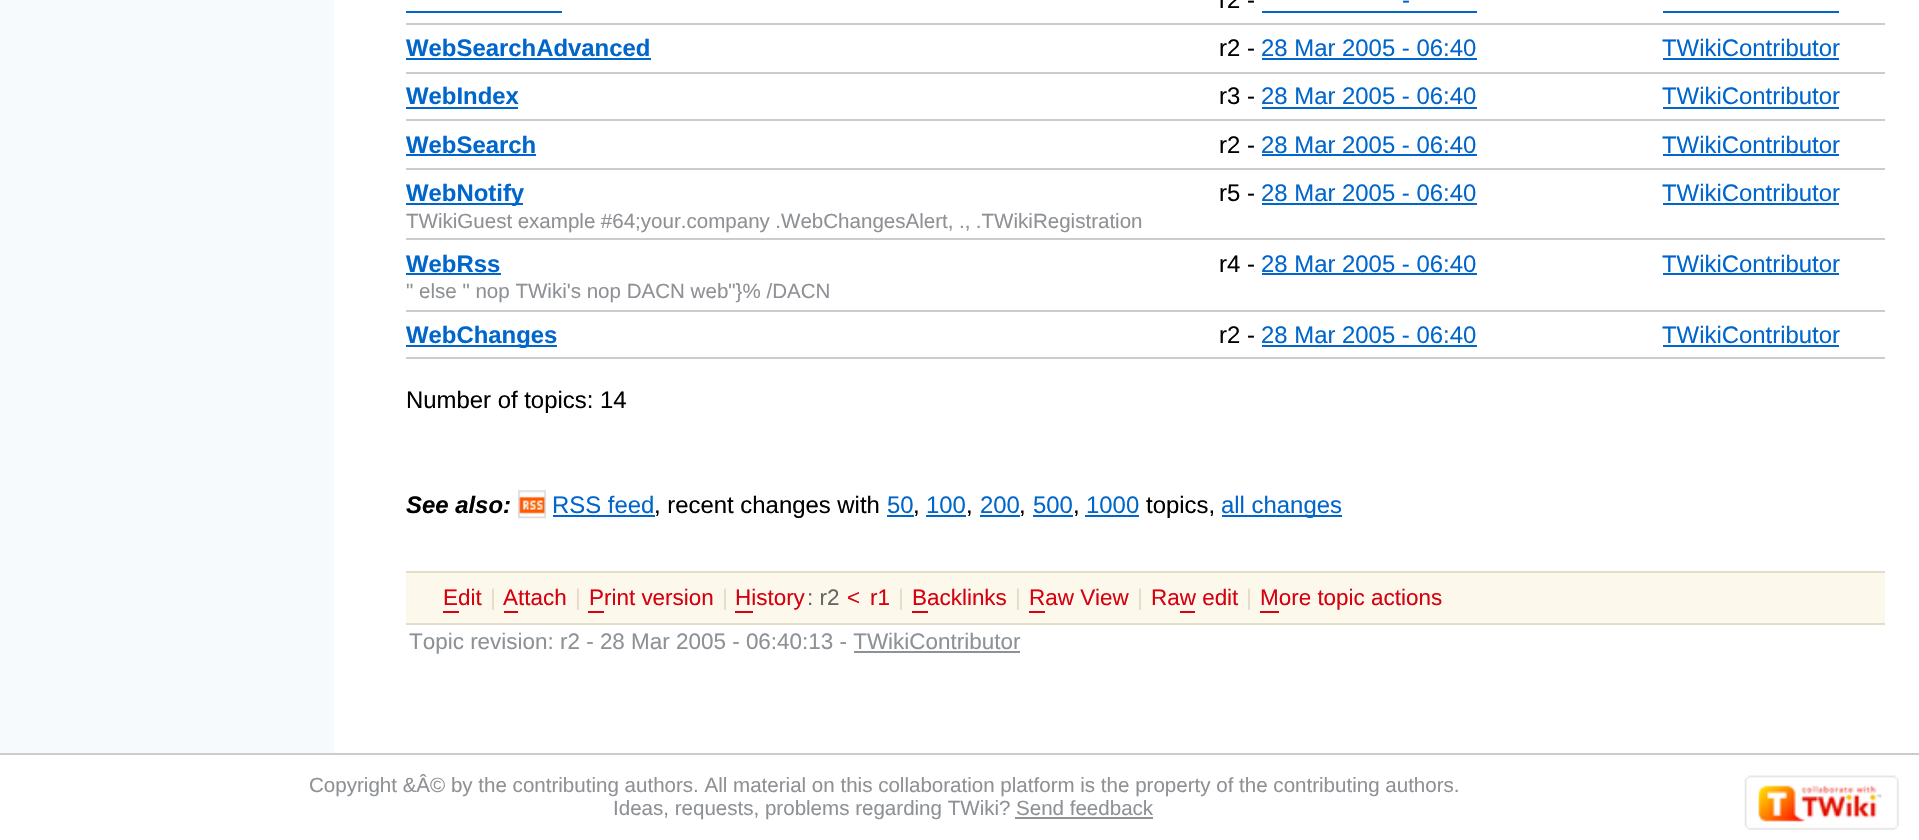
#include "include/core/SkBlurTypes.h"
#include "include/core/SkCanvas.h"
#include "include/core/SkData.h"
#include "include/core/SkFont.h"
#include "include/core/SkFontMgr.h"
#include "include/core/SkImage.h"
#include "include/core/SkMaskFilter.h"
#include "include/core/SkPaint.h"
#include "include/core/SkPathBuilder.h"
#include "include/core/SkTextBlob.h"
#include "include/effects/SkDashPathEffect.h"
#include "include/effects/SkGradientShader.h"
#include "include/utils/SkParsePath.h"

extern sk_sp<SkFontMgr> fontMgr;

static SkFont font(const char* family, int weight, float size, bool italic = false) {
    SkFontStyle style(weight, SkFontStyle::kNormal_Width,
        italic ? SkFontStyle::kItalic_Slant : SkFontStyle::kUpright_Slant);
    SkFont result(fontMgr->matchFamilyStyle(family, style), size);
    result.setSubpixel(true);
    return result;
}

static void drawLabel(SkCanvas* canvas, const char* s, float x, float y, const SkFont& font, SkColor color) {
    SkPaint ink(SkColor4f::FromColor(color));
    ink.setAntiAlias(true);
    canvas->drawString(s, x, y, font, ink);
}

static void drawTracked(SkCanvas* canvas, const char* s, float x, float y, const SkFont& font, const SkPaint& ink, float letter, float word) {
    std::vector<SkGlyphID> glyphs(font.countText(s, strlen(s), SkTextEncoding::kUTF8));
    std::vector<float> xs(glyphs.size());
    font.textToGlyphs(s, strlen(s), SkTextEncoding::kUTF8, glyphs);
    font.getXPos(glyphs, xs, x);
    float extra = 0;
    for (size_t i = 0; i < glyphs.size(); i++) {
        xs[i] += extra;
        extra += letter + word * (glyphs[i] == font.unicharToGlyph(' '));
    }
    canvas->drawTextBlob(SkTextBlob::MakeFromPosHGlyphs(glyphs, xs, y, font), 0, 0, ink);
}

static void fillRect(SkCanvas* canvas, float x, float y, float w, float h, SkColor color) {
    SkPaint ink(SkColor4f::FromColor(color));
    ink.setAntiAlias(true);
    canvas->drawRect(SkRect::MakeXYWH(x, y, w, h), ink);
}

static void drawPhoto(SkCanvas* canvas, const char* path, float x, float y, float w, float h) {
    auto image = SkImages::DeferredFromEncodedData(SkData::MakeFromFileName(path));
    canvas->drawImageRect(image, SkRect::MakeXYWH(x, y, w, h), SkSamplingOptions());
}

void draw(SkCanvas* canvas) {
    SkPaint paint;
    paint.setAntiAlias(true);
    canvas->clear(0xFFFFFFFF);
    fillRect(canvas, 0, 0, 334, 753, 0xFFF7FAFC);
    SkFont font1 = font("Liberation Sans", 400, 23.9f);
    drawLabel(canvas, "r2 -", 1219, 8, font1, 0xFF000000);
    drawLabel(canvas, "-", 1402, 8, font1, 0xFF0066CC);
    fillRect(canvas, 1262, 11, 215, 2, 0xFF0066CC);
    fillRect(canvas, 406, 11, 156, 2, 0xFF0066CC);
    fillRect(canvas, 1663, 11, 176, 2, 0xFF0066CC);
    fillRect(canvas, 406, 23, 1479, 2, 0xFFCCCCCC);
    SkFont font2 = font("Liberation Sans", 700, 23.9f);
    drawLabel(canvas, "WebSearchAdvanced", 406, 56, font2, 0xFF0066CC);
    fillRect(canvas, 406, 58, 245, 2, 0xFF0066CC);
    drawLabel(canvas, "r2 -", 1219, 56, font1, 0xFF000000);
    drawLabel(canvas, "28 Mar 2005 - 06:40", 1261, 56, font1, 0xFF0066CC);
    fillRect(canvas, 1262, 58, 215, 2, 0xFF0066CC);
    drawLabel(canvas, "TWikiContributor", 1662, 56, font1, 0xFF0066CC);
    fillRect(canvas, 1663, 58, 176, 2, 0xFF0066CC);
    fillRect(canvas, 406, 72, 1479, 2, 0xFFCCCCCC);
    drawLabel(canvas, "WebIndex", 406, 104, font2, 0xFF0066CC);
    fillRect(canvas, 406, 107, 112, 2, 0xFF0066CC);
    drawLabel(canvas, "r3 -", 1219, 104, font1, 0xFF000000);
    drawLabel(canvas, "28 Mar 2005 - 06:40", 1261, 104, font1, 0xFF0066CC);
    fillRect(canvas, 1262, 107, 215, 2, 0xFF0066CC);
    drawLabel(canvas, "TWikiContributor", 1662, 104, font1, 0xFF0066CC);
    fillRect(canvas, 1663, 107, 176, 2, 0xFF0066CC);
    fillRect(canvas, 406, 119, 1479, 2, 0xFFCCCCCC);
    drawLabel(canvas, "WebSearch", 406, 153, font2, 0xFF0066CC);
    fillRect(canvas, 406, 154, 130, 2, 0xFF0066CC);
    drawLabel(canvas, "r2 -", 1219, 153, font1, 0xFF000000);
    drawLabel(canvas, "28 Mar 2005 - 06:40", 1261, 153, font1, 0xFF0066CC);
    fillRect(canvas, 1262, 154, 215, 2, 0xFF0066CC);
    drawLabel(canvas, "TWikiContributor", 1662, 153, font1, 0xFF0066CC);
    fillRect(canvas, 1663, 154, 176, 2, 0xFF0066CC);
    fillRect(canvas, 406, 168, 1479, 2, 0xFFCCCCCC);
    fillRect(canvas, 406, 203, 117, 2, 0xFF0066CC);
    drawLabel(canvas, "WebNotify", 406, 201, font2, 0xFF0066CC);
    drawLabel(canvas, "r5 -", 1219, 201, font1, 0xFF000000);
    drawLabel(canvas, "28 Mar 2005 - 06:40", 1261, 201, font1, 0xFF0066CC);
    fillRect(canvas, 1262, 203, 215, 2, 0xFF0066CC);
    drawLabel(canvas, "TWikiContributor", 1662, 201, font1, 0xFF0066CC);
    fillRect(canvas, 1663, 203, 176, 2, 0xFF0066CC);
    fillRect(canvas, 406, 238, 1479, 2, 0xFFCCCCCC);
    SkFont font3 = font("Liberation Sans", 400, 20.55f);
    paint.setColor(0xFF8E9195);
    drawTracked(canvas, "TWikiGuest example #64;your.company .WebChangesAlert, ., .TWikiRegistration", 406, 228, font3, paint, 0, -0.25f);
    drawLabel(canvas, "WebRss", 406, 272, font2, 0xFF0066CC);
    fillRect(canvas, 406, 273, 95, 2, 0xFF0066CC);
    drawLabel(canvas, "r4 -", 1219, 272, font1, 0xFF000000);
    drawLabel(canvas, "28 Mar 2005 - 06:40", 1261, 272, font1, 0xFF0066CC);
    fillRect(canvas, 1262, 273, 215, 2, 0xFF0066CC);
    drawLabel(canvas, "TWikiContributor", 1662, 272, font1, 0xFF0066CC);
    fillRect(canvas, 1663, 273, 176, 2, 0xFF0066CC);
    fillRect(canvas, 406, 310, 1479, 2, 0xFFCCCCCC);
    drawLabel(canvas, "\" else \" nop TWiki's nop DACN web\"}% /DACN", 406, 298, font3, 0xFF8E9195);
    fillRect(canvas, 406, 345, 151, 2, 0xFF0066CC);
    drawLabel(canvas, "WebChanges", 406, 343, font2, 0xFF0066CC);
    drawLabel(canvas, "r2 -", 1219, 343, font1, 0xFF000000);
    drawLabel(canvas, "28 Mar 2005 - 06:40", 1261, 343, font1, 0xFF0066CC);
    fillRect(canvas, 1262, 345, 215, 2, 0xFF0066CC);
    drawLabel(canvas, "TWikiContributor", 1662, 343, font1, 0xFF0066CC);
    fillRect(canvas, 1663, 345, 176, 2, 0xFF0066CC);
    fillRect(canvas, 406, 357, 1479, 2, 0xFFCCCCCC);
    drawLabel(canvas, "Number of topics: 14", 406, 408, font1, 0xFF000000);
    SkFont font4 = font("Liberation Sans", 700, 23.9f, true);
    drawLabel(canvas, "See also:", 406, 513, font4, 0xFF000000);
    drawPhoto(canvas, "assets/img1.png", 518, 490, 28, 29);
    drawLabel(canvas, "RSS feed", 552, 513, font1, 0xFF0066CC);
    fillRect(canvas, 553, 515, 102, 2, 0xFF0066CC);
    drawLabel(canvas, ", recent changes with", 654, 513, font1, 0xFF000000);
    drawLabel(canvas, "50", 887, 513, font1, 0xFF0066CC);
    fillRect(canvas, 887, 515, 27, 2, 0xFF0066CC);
    drawLabel(canvas, ",", 913, 513, font1, 0xFF000000);
    drawLabel(canvas, "100", 926, 513, font1, 0xFF0066CC);
    fillRect(canvas, 926, 515, 40, 2, 0xFF0066CC);
    drawLabel(canvas, ",", 966, 513, font1, 0xFF000000);
    drawLabel(canvas, "200", 980, 513, font1, 0xFF0066CC);
    fillRect(canvas, 980, 515, 40, 2, 0xFF0066CC);
    drawLabel(canvas, ",", 1019, 513, font1, 0xFF000000);
    drawLabel(canvas, "500", 1033, 513, font1, 0xFF0066CC);
    fillRect(canvas, 1033, 515, 40, 2, 0xFF0066CC);
    drawLabel(canvas, ",", 1073, 513, font1, 0xFF000000);
    drawLabel(canvas, "1000", 1086, 513, font1, 0xFF0066CC);
    fillRect(canvas, 1085, 515, 54, 2, 0xFF0066CC);
    drawLabel(canvas, "topics,", 1146, 513, font1, 0xFF000000);
    fillRect(canvas, 1222, 515, 120, 2, 0xFF0066CC);
    drawLabel(canvas, "all changes", 1221, 513, font1, 0xFF0066CC);
    fillRect(canvas, 406, 623, 1479, 2, 0xFFE2DCC8);
    fillRect(canvas, 406, 573, 1479, 50, 0xFFFCF8EC);
    fillRect(canvas, 406, 571, 1479, 2, 0xFFE2DCC8);
    SkFont font5 = font("Liberation Sans", 400, 22.45f);
    drawLabel(canvas, "Edit", 443, 605, font5, 0xFFD6000F);
    fillRect(canvas, 443, 611, 16, 2, 0xFFD6000F);
    drawLabel(canvas, "|", 490, 605, font5, 0xFFE2DCC8);
    drawLabel(canvas, "Attach", 503, 605, font5, 0xFFD6000F);
    fillRect(canvas, 504, 611, 14, 2, 0xFFD6000F);
    drawLabel(canvas, "|", 575, 605, font5, 0xFFE2DCC8);
    drawLabel(canvas, "Print version", 589, 605, font5, 0xFFD6000F);
    fillRect(canvas, 588, 611, 16, 2, 0xFFD6000F);
    drawLabel(canvas, "|", 722, 605, font5, 0xFFE2DCC8);
    drawLabel(canvas, "History", 735, 605, font5, 0xFFD6000F);
    fillRect(canvas, 735, 611, 18, 2, 0xFFD6000F);
    drawLabel(canvas, ": r2", 807, 605, font5, 0xFF666666);
    drawLabel(canvas, "<", 847, 605, font5, 0xFFD6000F);
    drawLabel(canvas, "r1", 870, 605, font5, 0xFFD6000F);
    drawLabel(canvas, "|", 898, 605, font5, 0xFFE2DCC8);
    drawLabel(canvas, "Backlinks", 912, 605, font5, 0xFFD6000F);
    fillRect(canvas, 912, 611, 16, 2, 0xFFD6000F);
    drawLabel(canvas, "|", 1015, 605, font5, 0xFFE2DCC8);
    drawLabel(canvas, "Raw View", 1029, 605, font5, 0xFFD6000F);
    fillRect(canvas, 1029, 611, 16, 2, 0xFFD6000F);
    drawLabel(canvas, "|", 1137, 605, font5, 0xFFE2DCC8);
    drawLabel(canvas, "Raw edit", 1151, 605, font5, 0xFFD6000F);
    fillRect(canvas, 1180, 611, 15, 2, 0xFFD6000F);
    drawLabel(canvas, "|", 1246, 605, font5, 0xFFE2DCC8);
    drawLabel(canvas, "More topic actions", 1260, 605, font5, 0xFFD6000F);
    fillRect(canvas, 1260, 611, 19, 2, 0xFFD6000F);
    drawLabel(canvas, "Topic revision: r2 - 28 Mar 2005 - 06:40:13 - TWikiContributor", 409, 649, font5, 0xFF8E9195);
    fillRect(canvas, 854, 651, 166, 2, 0xFF8E9195);
    fillRect(canvas, 0, 753, 1919, 2, 0xFFCCCCCC);
    drawLabel(canvas, "Copyright &Â© by the contributing authors. All material on this collaboration platform is the property of the contributing authors.", 309, 792, font3, 0xFF8E9195);
    drawPhoto(canvas, "assets/img2.png", 1744, 775, 155, 55);
    drawLabel(canvas, "Ideas, requests, problems regarding TWiki?", 613, 815, font3, 0xFF8E9195);
    drawLabel(canvas, "Send feedback", 1016, 815, font3, 0xFF8E9195);
    fillRect(canvas, 1015, 817, 138, 2, 0xFF8E9195);
}
